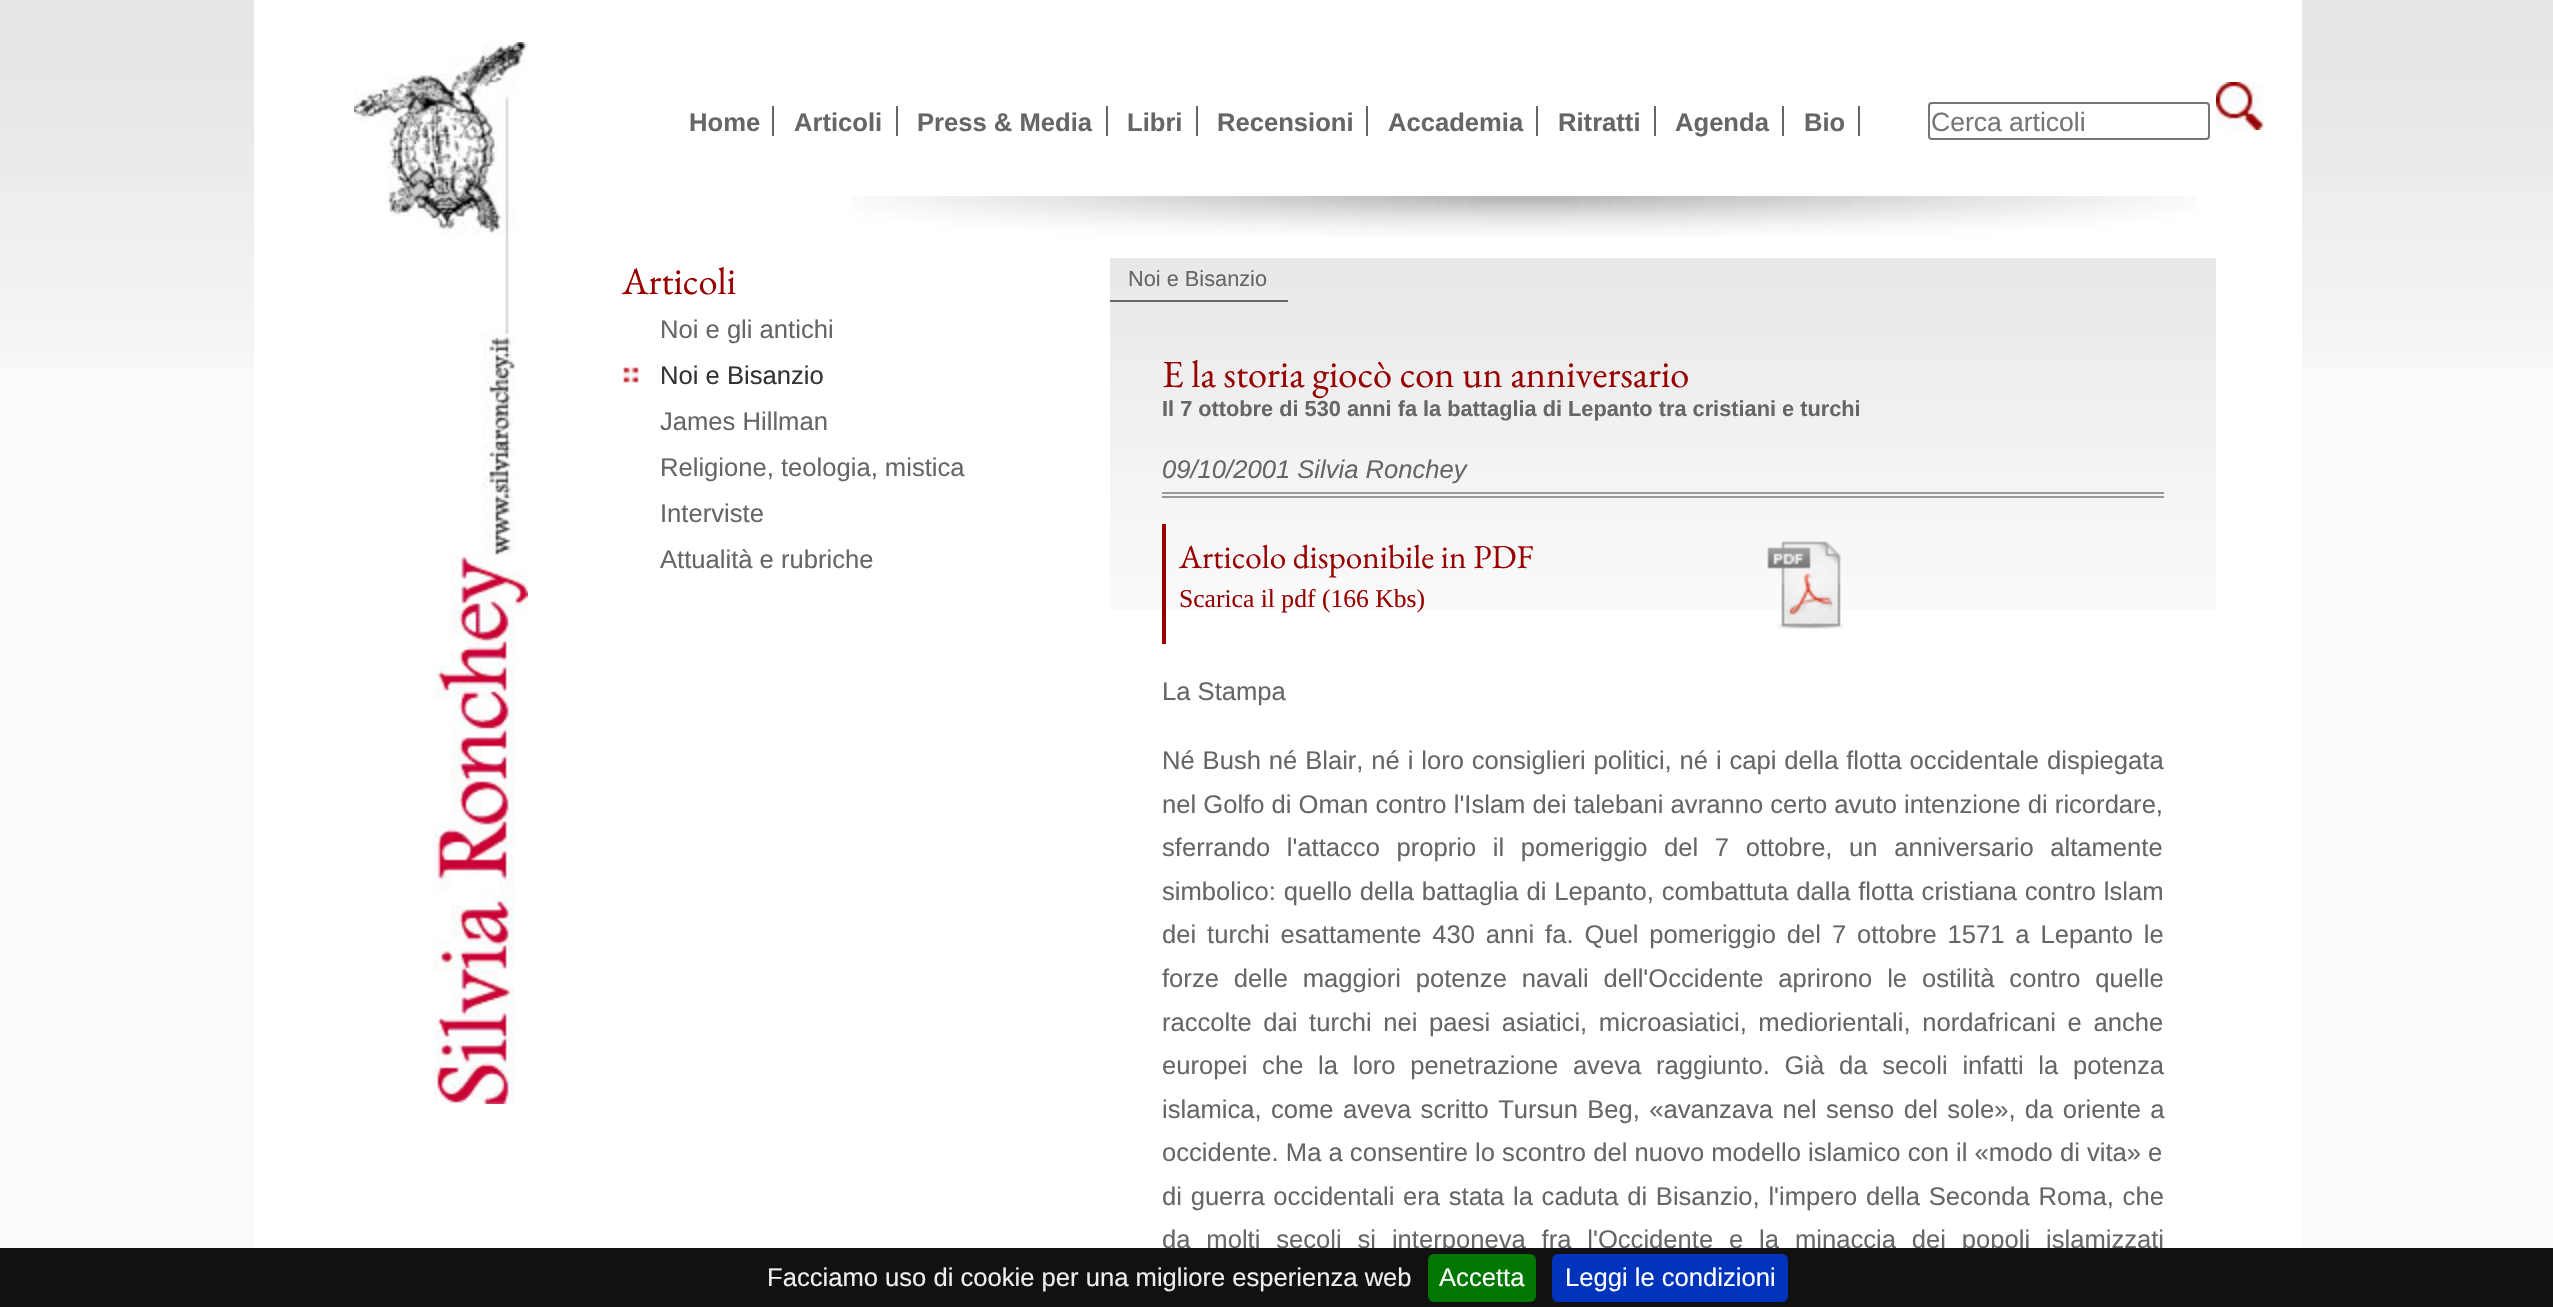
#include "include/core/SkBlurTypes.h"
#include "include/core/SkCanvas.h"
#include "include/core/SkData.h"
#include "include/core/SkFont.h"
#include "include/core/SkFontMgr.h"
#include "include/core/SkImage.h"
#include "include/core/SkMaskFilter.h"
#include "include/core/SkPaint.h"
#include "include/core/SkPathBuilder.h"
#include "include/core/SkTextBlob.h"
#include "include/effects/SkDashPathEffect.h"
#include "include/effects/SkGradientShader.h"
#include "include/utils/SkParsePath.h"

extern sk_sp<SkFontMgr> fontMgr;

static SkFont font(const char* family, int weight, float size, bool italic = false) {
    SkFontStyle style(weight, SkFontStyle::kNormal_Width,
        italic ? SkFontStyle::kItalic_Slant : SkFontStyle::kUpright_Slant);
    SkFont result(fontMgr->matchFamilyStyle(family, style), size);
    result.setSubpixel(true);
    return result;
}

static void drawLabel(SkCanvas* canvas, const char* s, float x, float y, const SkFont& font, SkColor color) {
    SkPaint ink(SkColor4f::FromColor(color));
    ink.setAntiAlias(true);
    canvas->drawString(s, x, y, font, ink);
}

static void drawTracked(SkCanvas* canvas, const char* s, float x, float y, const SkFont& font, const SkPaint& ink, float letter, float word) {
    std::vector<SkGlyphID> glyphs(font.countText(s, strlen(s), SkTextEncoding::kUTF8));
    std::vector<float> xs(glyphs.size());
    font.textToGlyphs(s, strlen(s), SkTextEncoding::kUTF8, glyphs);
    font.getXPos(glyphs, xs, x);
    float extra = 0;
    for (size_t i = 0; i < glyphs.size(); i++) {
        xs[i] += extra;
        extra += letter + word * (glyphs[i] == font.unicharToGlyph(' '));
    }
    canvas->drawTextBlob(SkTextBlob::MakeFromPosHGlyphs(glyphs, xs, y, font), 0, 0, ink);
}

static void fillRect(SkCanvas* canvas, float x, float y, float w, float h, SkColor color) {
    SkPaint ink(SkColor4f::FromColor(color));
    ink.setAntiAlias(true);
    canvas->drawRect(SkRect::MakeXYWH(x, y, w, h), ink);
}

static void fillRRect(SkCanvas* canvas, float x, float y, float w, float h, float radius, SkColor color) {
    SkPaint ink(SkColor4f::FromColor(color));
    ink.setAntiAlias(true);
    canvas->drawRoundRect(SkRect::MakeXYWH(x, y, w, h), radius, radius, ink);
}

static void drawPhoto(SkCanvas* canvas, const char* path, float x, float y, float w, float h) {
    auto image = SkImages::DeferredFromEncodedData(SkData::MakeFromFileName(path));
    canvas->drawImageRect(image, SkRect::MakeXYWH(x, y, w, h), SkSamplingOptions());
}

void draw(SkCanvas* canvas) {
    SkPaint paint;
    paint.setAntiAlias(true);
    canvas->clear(0xFFFBFBFB);
    drawPhoto(canvas, "assets/img1.png", 0, 0, 2553, 368);
    fillRect(canvas, 254, 0, 2048, 1248, 0xFFFFFFFF);
    drawPhoto(canvas, "assets/img2.png", 354, 42, 174, 1062);
    SkFont font1 = font("Liberation Sans", 700, 25.6f);
    drawLabel(canvas, "Home", 689, 131, font1, 0xFF666666);
    fillRect(canvas, 772, 106, 2, 30, 0xFF666666);
    drawLabel(canvas, "Articoli", 794, 131, font1, 0xFF666666);
    fillRect(canvas, 896, 106, 2, 30, 0xFF666666);
    drawLabel(canvas, "Press & Media", 917, 131, font1, 0xFF666666);
    fillRect(canvas, 1106, 106, 2, 30, 0xFF666666);
    drawLabel(canvas, "Libri", 1127, 131, font1, 0xFF666666);
    fillRect(canvas, 1196, 106, 2, 30, 0xFF666666);
    drawLabel(canvas, "Recensioni", 1217, 131, font1, 0xFF666666);
    fillRect(canvas, 1366, 106, 2, 30, 0xFF666666);
    drawLabel(canvas, "Accademia", 1388, 131, font1, 0xFF666666);
    fillRect(canvas, 1536, 106, 2, 30, 0xFF666666);
    drawLabel(canvas, "Ritratti", 1558, 131, font1, 0xFF666666);
    fillRect(canvas, 1654, 106, 2, 30, 0xFF666666);
    drawLabel(canvas, "Agenda", 1675, 131, font1, 0xFF666666);
    fillRect(canvas, 1782, 106, 2, 30, 0xFF666666);
    drawLabel(canvas, "Bio", 1804, 131, font1, 0xFF666666);
    fillRect(canvas, 1858, 106, 2, 30, 0xFF666666);
    paint.setStroke(true);
    paint.setStrokeWidth(2);
    paint.setColor(0xFF767676);
    canvas->drawRoundRect(SkRect::MakeXYWH(1929, 103, 280, 36), 3, 3, paint);
    SkFont font2 = font("Liberation Sans", 400, 26.5f);
    drawLabel(canvas, "Cerca articoli", 1931, 131, font2, 0xFF757575);
    drawPhoto(canvas, "assets/img3.png", 2216, 82, 48, 48);
    drawPhoto(canvas, "assets/img4.png", 851, 196, 1346, 40);
    SkFont font3 = font("EB Garamond", 400, 38.4f);
    drawLabel(canvas, "Articoli", 622, 294, font3, 0xFF990000);
    SkFont font4 = font("Liberation Sans", 400, 25.6f);
    drawLabel(canvas, "Noi e gli antichi", 660, 338, font4, 0xFF666666);
    drawPhoto(canvas, "assets/img5.png", 623, 367, 16, 16);
    drawLabel(canvas, "Noi e Bisanzio", 660, 384, font4, 0xFF333333);
    drawLabel(canvas, "James Hillman", 660, 430, font4, 0xFF666666);
    drawLabel(canvas, "Religione, teologia, mistica", 660, 476, font4, 0xFF666666);
    drawLabel(canvas, "Interviste", 660, 522, font4, 0xFF666666);
    drawLabel(canvas, "Attualità e rubriche", 660, 568, font4, 0xFF666666);
    drawPhoto(canvas, "assets/img6.png", 1110, 258, 1106, 352);
    SkFont font5 = font("Liberation Sans", 400, 21.75f);
    drawLabel(canvas, "Noi e Bisanzio", 1128, 286, font5, 0xFF666666);
    fillRect(canvas, 1110, 300, 178, 2, 0xFF666666);
    drawLabel(canvas, "E la storia giocò con un anniversario", 1162, 387, font3, 0xFF990000);
    SkFont font6 = font("Liberation Sans", 700, 21.75f);
    drawLabel(canvas, "Il 7 ottobre di 530 anni fa la battaglia di Lepanto tra cristiani e turchi", 1162, 416, font6, 0xFF666666);
    fillRect(canvas, 1162, 492, 1002, 2, 0xFF999999);
    fillRect(canvas, 1162, 496, 1002, 2, 0xFF999999);
    SkFont font7 = font("Liberation Sans", 400, 25.6f, true);
    drawLabel(canvas, "09/10/2001 Silvia Ronchey", 1162, 478, font7, 0xFF666666);
    fillRect(canvas, 1162, 524, 4, 120, 0xFF990000);
    SkFont font8 = font("EB Garamond", 400, 33.25f);
    drawLabel(canvas, "Articolo disponibile in PDF", 1179, 568, font8, 0xFF990000);
    SkFont font9 = font("Liberation Serif", 400, 25.6f);
    drawLabel(canvas, "Scarica il pdf (166 Kbs)", 1179, 607, font9, 0xFF990000);
    drawPhoto(canvas, "assets/img7.png", 1767, 541, 77, 88);
    drawLabel(canvas, "La Stampa", 1162, 700, font4, 0xFF666666);
    paint.setStroke(false);
    paint.setColor(0xFF666666);
    drawTracked(canvas, "Né Bush né Blair, né i loro consiglieri politici, né i capi della flotta occidentale dispiegata", 1162, 769, font4, paint, 0, 0.75f);
    drawLabel(canvas, "nel Golfo di Oman contro l'Islam dei talebani avranno certo avuto intenzione di ricordare,", 1162, 813, font4, 0xFF666666);
    drawTracked(canvas, "sferrando l'attacco proprio il pomeriggio del 7 ottobre, un anniversario altamente", 1162, 856, font4, paint, 0, 9.5f);
    drawTracked(canvas, "simbolico: quello della battaglia di Lepanto, combattuta dalla flotta cristiana contro lslam", 1162, 900, font4, paint, 0, 0.75f);
    drawTracked(canvas, "dei turchi esattamente 430 anni fa. Quel pomeriggio del 7 ottobre 1571 a Lepanto le", 1162, 943, font4, paint, 0, 3.75f);
    drawTracked(canvas, "forze delle maggiori potenze navali dell'Occidente aprirono le ostilità contro quelle", 1162, 987, font4, paint, 0, 7.75f);
    drawTracked(canvas, "raccolte dai turchi nei paesi asiatici, microasiatici, mediorientali, nordafricani e anche", 1162, 1031, font4, paint, 0, 4.5f);
    drawTracked(canvas, "europei che la loro penetrazione aveva raggiunto. Già da secoli infatti la potenza", 1162, 1074, font4, paint, 0, 7.6f);
    drawTracked(canvas, "islamica, come aveva scritto Tursun Beg, «avanzava nel senso del sole», da oriente a", 1162, 1118, font4, paint, 0, 2.25f);
    drawLabel(canvas, "occidente. Ma a consentire lo scontro del nuovo modello islamico con il «modo di vita» e", 1162, 1161, font4, 0xFF666666);
    drawTracked(canvas, "di guerra occidentali era stata la caduta di Bisanzio, l'impero della Seconda Roma, che", 1162, 1205, font4, paint, 0, 1.6f);
    drawTracked(canvas, "da molti secoli si interponeva fra l'Occidente e la minaccia dei popoli islamizzati", 1162, 1248, font4, paint, 0, 8.75f);
    fillRect(canvas, 0, 1248, 2553, 59, 0xFF111111);
    drawLabel(canvas, "Facciamo uso di cookie per una migliore esperienza web", 767, 1286, font4, 0xFFEEEEEE);
    fillRRect(canvas, 1428, 1254, 108, 48, 6, 0xFF007700);
    drawLabel(canvas, "Accetta", 1439, 1286, font4, 0xFFFFFFFF);
    fillRRect(canvas, 1552, 1254, 236, 48, 6, 0xFF0033BB);
    drawLabel(canvas, "Leggi le condizioni", 1565, 1286, font4, 0xFFFFFFFF);
}
